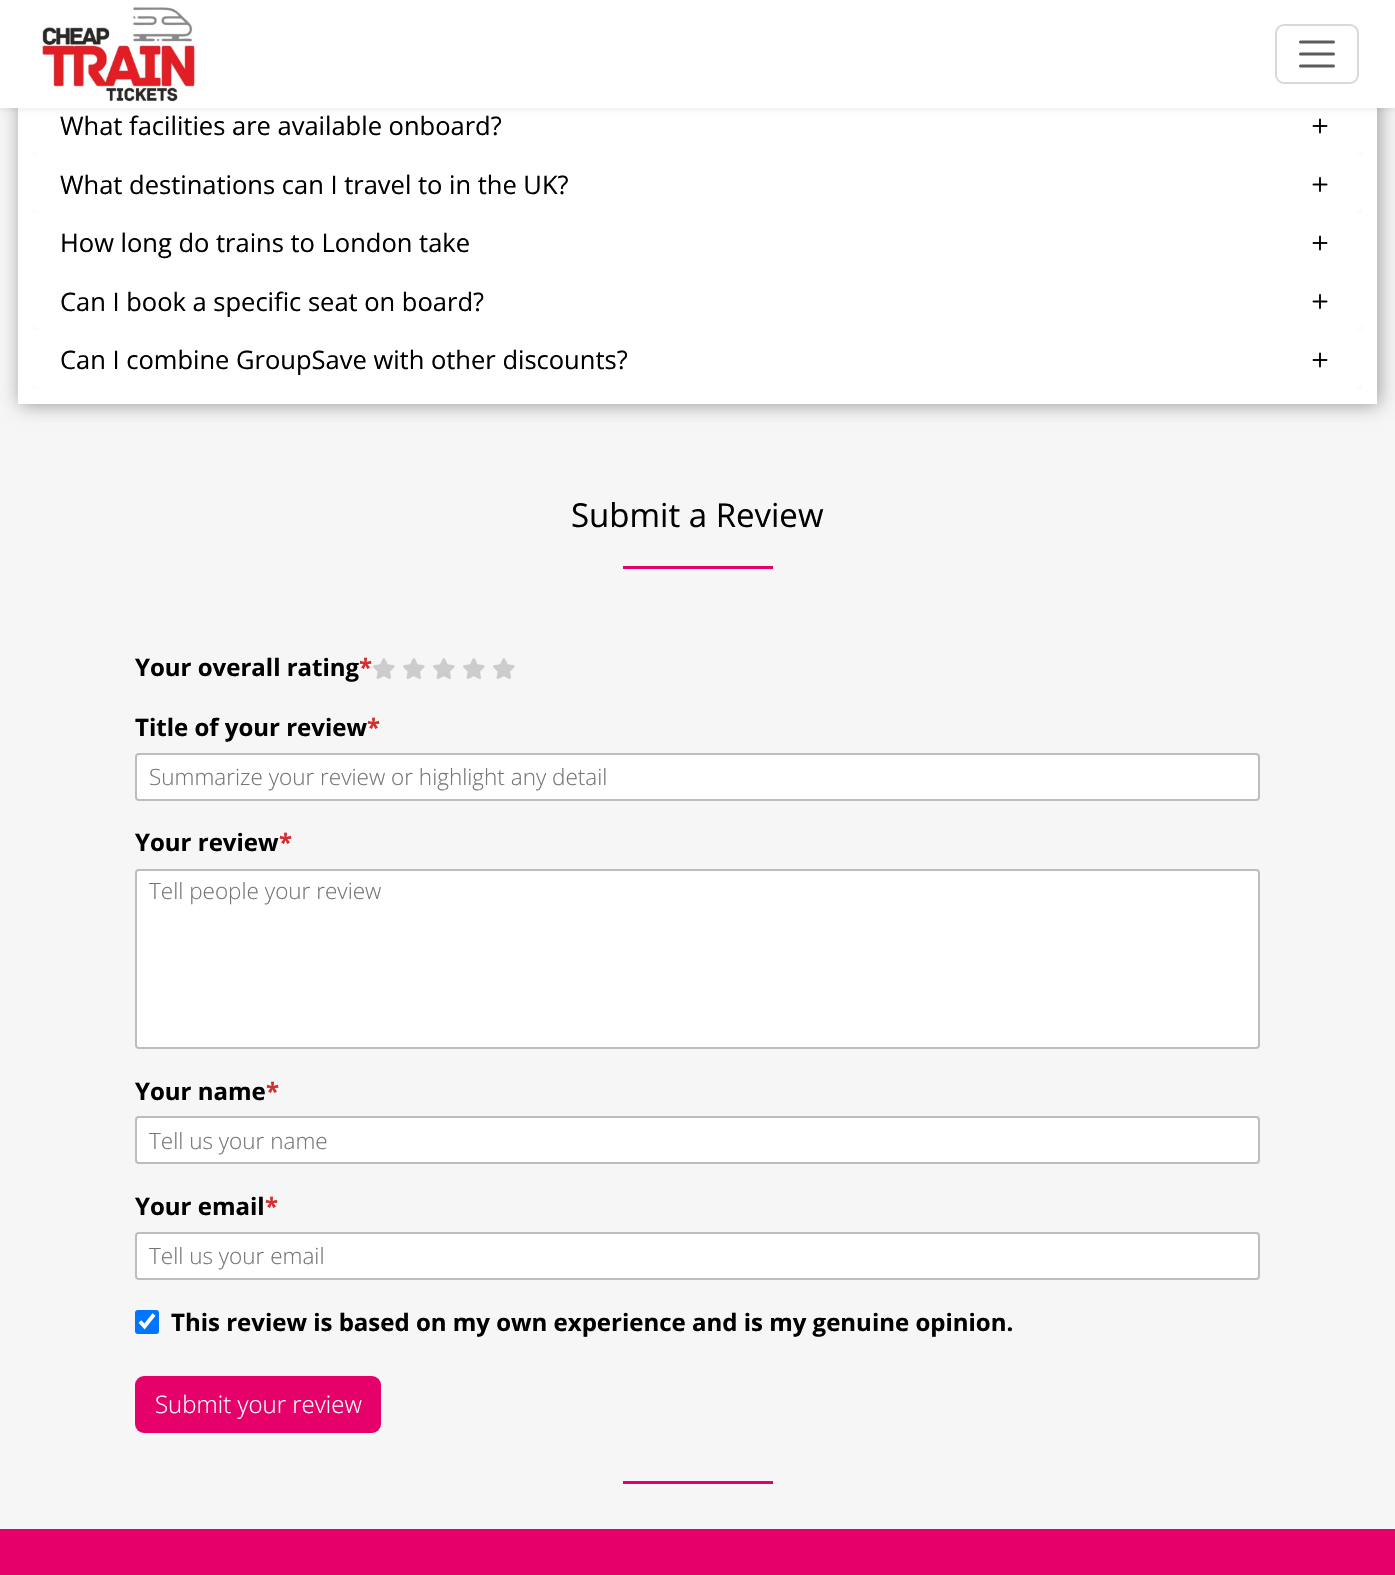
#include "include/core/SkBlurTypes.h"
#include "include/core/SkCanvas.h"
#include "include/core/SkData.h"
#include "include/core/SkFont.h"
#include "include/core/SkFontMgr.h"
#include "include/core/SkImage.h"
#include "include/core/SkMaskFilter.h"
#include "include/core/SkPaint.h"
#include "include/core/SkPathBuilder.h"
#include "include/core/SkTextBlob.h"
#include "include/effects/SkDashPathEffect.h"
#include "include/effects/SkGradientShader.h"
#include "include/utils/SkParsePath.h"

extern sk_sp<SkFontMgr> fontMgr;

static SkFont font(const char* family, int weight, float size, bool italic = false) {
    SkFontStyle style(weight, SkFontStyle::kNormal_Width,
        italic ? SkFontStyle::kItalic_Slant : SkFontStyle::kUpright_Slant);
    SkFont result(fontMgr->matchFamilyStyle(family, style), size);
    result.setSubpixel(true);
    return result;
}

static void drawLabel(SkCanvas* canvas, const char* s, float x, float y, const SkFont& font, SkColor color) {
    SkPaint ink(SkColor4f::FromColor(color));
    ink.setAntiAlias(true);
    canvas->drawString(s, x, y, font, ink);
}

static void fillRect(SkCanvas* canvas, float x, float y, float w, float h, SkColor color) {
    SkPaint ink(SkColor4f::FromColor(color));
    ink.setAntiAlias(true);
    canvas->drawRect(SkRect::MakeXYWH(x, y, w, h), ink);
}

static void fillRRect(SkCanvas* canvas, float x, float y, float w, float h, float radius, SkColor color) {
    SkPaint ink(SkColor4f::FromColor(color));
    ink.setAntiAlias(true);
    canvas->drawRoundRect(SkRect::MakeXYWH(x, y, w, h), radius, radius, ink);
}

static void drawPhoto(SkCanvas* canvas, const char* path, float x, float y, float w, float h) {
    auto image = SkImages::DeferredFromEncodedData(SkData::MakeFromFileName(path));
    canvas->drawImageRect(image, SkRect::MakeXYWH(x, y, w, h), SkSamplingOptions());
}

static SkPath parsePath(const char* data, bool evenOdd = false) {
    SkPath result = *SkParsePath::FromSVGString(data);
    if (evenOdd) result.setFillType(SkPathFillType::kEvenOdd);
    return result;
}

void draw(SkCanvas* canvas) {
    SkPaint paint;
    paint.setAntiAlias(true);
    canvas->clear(0xFFE60069);
    fillRect(canvas, 0, 108, 1395, 1421, 0xFFF6F6F6);
    paint.setColor(0xFF999999);
    paint.setMaskFilter(SkMaskFilter::MakeBlur(kNormal_SkBlurStyle, 9));
    canvas->drawRect(SkRect::MakeXYWH(20, -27, 1359, 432), paint);
    paint.setMaskFilter(nullptr);
    fillRect(canvas, 18, 108, 1359, 296, 0xFFFFFFFF);
    fillRect(canvas, 33, 147, 1329, 66, 0xFFF8FAFC);
    paint.setColor(0xFFFFFFFF);
    canvas->drawPath(parsePath("M33 96H1362V147C1362 151.5 1358.5 155 1354 155H41C36.5 155 33 151.5 33 147Z"), paint);
    paint.setColor(0x0D000000);
    paint.setMaskFilter(SkMaskFilter::MakeBlur(kNormal_SkBlurStyle, 1.5f));
    canvas->drawRect(SkRect::MakeXYWH(0, 3, 1395, 108), paint);
    paint.setMaskFilter(nullptr);
    fillRect(canvas, 0, 0, 1395, 108, 0xFFFFFFFF);
    drawPhoto(canvas, "assets/img1.png", 41, 7, 154, 95);
    paint.setStroke(true);
    paint.setStrokeWidth(2);
    paint.setColor(0xFFD9D9D9);
    canvas->drawRoundRect(SkRect::MakeXYWH(1276, 25, 82, 58), 8, 8, paint);
    paint.setStrokeWidth(3);
    paint.setStrokeCap(SkPaint::kRound_Cap);
    paint.setColor(0xFF595C5F);
    canvas->drawPath(parsePath("M1300.5 42H1333.5M1300.5 54H1333.5M1300.5 66H1333.5"), paint);
    SkFont font1 = font("Open Sans", 400, 25.5f);
    drawLabel(canvas, "What facilities are available onboard?", 60, 135, font1, 0xFF000000);
    drawPhoto(canvas, "assets/img2.png", 1312, 118, 16, 16);
    paint.setStroke(false);
    paint.setColor(0xFFFFFFFF);
    canvas->drawPath(parsePath("M33 155H1362V205C1362 209.5 1358.5 213 1354 213H41C36.5 213 33 209.5 33 205Z"), paint);
    drawLabel(canvas, "What destinations can I travel to in the UK?", 60, 194, font1, 0xFF000000);
    drawPhoto(canvas, "assets/img3.png", 1312, 177, 16, 15);
    fillRect(canvas, 33, 322, 1329, 67, 0xFFF8FAFC);
    drawLabel(canvas, "How long do trains to London take", 60, 252, font1, 0xFF000000);
    drawPhoto(canvas, "assets/img2.png", 1312, 235, 16, 16);
    canvas->drawPath(parsePath("M33 272H1362V322C1362 326.5 1358.5 330 1354 330H41C36.5 330 33 326.5 33 322Z"), paint);
    drawLabel(canvas, "Can I book a specific seat on board?", 60, 311, font1, 0xFF000000);
    drawPhoto(canvas, "assets/img3.png", 1312, 294, 16, 15);
    canvas->drawPath(parsePath("M33 330H1362V381C1362 385.5 1358.5 389 1354 389H41C36.5 389 33 385.5 33 381Z"), paint);
    drawLabel(canvas, "Can I combine GroupSave with other discounts?", 60, 369, font1, 0xFF000000);
    drawPhoto(canvas, "assets/img2.png", 1312, 352, 16, 16);
    SkFont font2 = font("Open Sans", 400, 33);
    drawLabel(canvas, "Submit a Review", 571, 527, font2, 0xFF000000);
    fillRect(canvas, 623, 566, 150, 3, 0xFFE60069);
    SkFont font3 = font("Open Sans", 700, 24);
    drawLabel(canvas, "Your overall rating", 135, 676, font3, 0xFF000000);
    drawLabel(canvas, "*", 359, 676, font3, 0xFFD32F2F);
    drawPhoto(canvas, "assets/img4.png", 373, 658, 22, 21);
    drawPhoto(canvas, "assets/img4.png", 403, 658, 22, 21);
    drawPhoto(canvas, "assets/img4.png", 433, 658, 22, 21);
    drawPhoto(canvas, "assets/img4.png", 463, 658, 22, 21);
    drawPhoto(canvas, "assets/img4.png", 493, 658, 22, 21);
    drawLabel(canvas, "Title of your review", 135, 736, font3, 0xFF000000);
    drawLabel(canvas, "*", 367, 736, font3, 0xFFD32F2F);
    canvas->drawRoundRect(SkRect::MakeXYWH(136, 754, 1123, 46), 3, 3, paint);
    paint.setStroke(true);
    paint.setStrokeWidth(2);
    paint.setStrokeCap(SkPaint::kButt_Cap);
    paint.setColor(0xFFBDBDBD);
    canvas->drawRoundRect(SkRect::MakeXYWH(136, 754, 1123, 46), 3, 3, paint);
    SkFont font4 = font("Open Sans", 300, 22.5f);
    drawLabel(canvas, "Summarize your review or highlight any detail", 149, 785, font4, 0xFF757575);
    drawLabel(canvas, "Your review", 135, 851, font3, 0xFF000000);
    drawLabel(canvas, "*", 279, 851, font3, 0xFFD32F2F);
    paint.setStroke(false);
    paint.setColor(0xFFFFFFFF);
    canvas->drawRoundRect(SkRect::MakeXYWH(136, 870, 1123, 178), 3, 3, paint);
    paint.setStroke(true);
    paint.setColor(0xFFBDBDBD);
    canvas->drawRoundRect(SkRect::MakeXYWH(136, 870, 1123, 178), 3, 3, paint);
    drawLabel(canvas, "Tell people your review", 149, 899, font4, 0xFF757575);
    drawLabel(canvas, "Your name", 135, 1100, font3, 0xFF000000);
    drawLabel(canvas, "*", 266, 1100, font3, 0xFFD32F2F);
    paint.setStroke(false);
    paint.setColor(0xFFFFFFFF);
    canvas->drawRoundRect(SkRect::MakeXYWH(136, 1117, 1123, 46), 3, 3, paint);
    paint.setStroke(true);
    paint.setColor(0xFFBDBDBD);
    canvas->drawRoundRect(SkRect::MakeXYWH(136, 1117, 1123, 46), 3, 3, paint);
    drawLabel(canvas, "Tell us your name", 149, 1149, font4, 0xFF757575);
    drawLabel(canvas, "Your email", 135, 1215, font3, 0xFF000000);
    drawLabel(canvas, "*", 265, 1215, font3, 0xFFD32F2F);
    paint.setStroke(false);
    paint.setColor(0xFFFFFFFF);
    canvas->drawRoundRect(SkRect::MakeXYWH(136, 1233, 1123, 46), 3, 3, paint);
    paint.setStroke(true);
    paint.setColor(0xFFBDBDBD);
    canvas->drawRoundRect(SkRect::MakeXYWH(136, 1233, 1123, 46), 3, 3, paint);
    drawLabel(canvas, "Tell us your email", 149, 1264, font4, 0xFF757575);
    fillRRect(canvas, 135, 1310, 24, 24, 3, 0xFF0075FF);
    paint.setStrokeWidth(3.8f);
    paint.setColor(0xFFFFFFFF);
    canvas->drawPath(parsePath("M140 1321.5L144.5 1326.5L154 1314.5"), paint);
    drawLabel(canvas, "This review is based on my own experience and is my genuine opinion.", 171, 1331, font3, 0xFF000000);
    fillRRect(canvas, 135, 1376, 246, 57, 9, 0xFFE60069);
    SkFont font5 = font("Open Sans", 300, 24);
    drawLabel(canvas, "Submit your review", 155, 1413, font5, 0xFFFFFFFF);
    fillRect(canvas, 623, 1481, 150, 3, 0xFFE60069);
}
